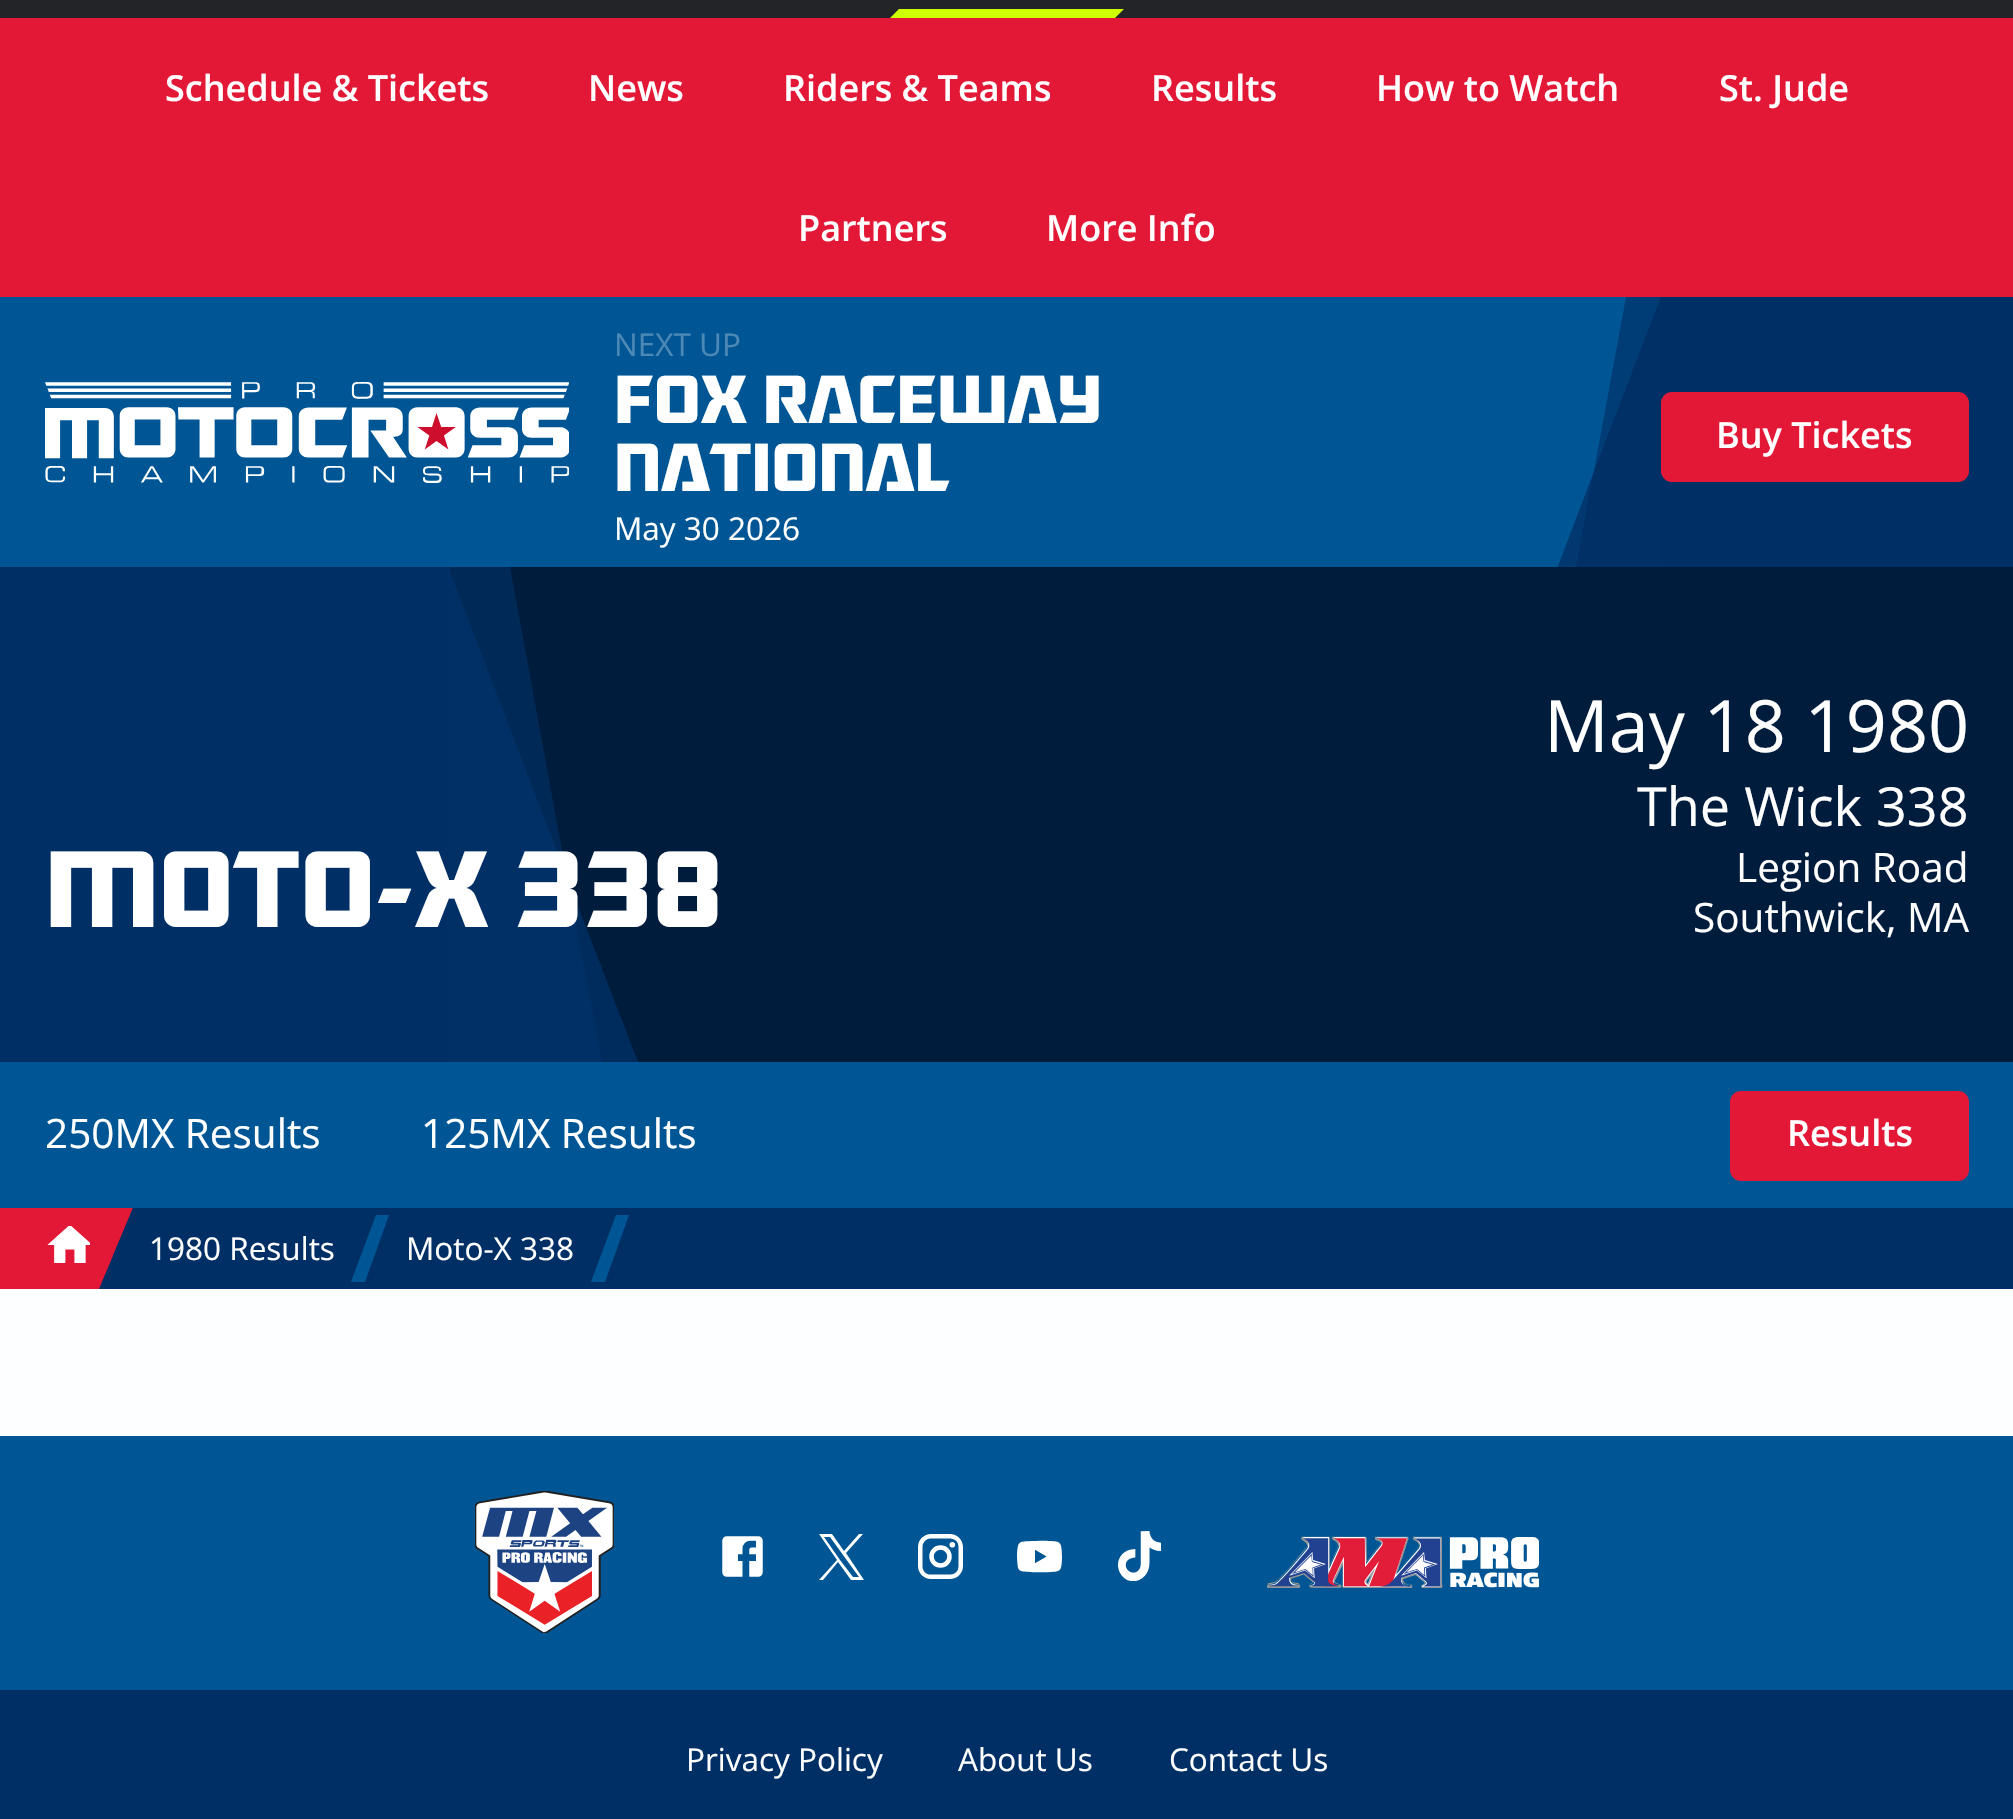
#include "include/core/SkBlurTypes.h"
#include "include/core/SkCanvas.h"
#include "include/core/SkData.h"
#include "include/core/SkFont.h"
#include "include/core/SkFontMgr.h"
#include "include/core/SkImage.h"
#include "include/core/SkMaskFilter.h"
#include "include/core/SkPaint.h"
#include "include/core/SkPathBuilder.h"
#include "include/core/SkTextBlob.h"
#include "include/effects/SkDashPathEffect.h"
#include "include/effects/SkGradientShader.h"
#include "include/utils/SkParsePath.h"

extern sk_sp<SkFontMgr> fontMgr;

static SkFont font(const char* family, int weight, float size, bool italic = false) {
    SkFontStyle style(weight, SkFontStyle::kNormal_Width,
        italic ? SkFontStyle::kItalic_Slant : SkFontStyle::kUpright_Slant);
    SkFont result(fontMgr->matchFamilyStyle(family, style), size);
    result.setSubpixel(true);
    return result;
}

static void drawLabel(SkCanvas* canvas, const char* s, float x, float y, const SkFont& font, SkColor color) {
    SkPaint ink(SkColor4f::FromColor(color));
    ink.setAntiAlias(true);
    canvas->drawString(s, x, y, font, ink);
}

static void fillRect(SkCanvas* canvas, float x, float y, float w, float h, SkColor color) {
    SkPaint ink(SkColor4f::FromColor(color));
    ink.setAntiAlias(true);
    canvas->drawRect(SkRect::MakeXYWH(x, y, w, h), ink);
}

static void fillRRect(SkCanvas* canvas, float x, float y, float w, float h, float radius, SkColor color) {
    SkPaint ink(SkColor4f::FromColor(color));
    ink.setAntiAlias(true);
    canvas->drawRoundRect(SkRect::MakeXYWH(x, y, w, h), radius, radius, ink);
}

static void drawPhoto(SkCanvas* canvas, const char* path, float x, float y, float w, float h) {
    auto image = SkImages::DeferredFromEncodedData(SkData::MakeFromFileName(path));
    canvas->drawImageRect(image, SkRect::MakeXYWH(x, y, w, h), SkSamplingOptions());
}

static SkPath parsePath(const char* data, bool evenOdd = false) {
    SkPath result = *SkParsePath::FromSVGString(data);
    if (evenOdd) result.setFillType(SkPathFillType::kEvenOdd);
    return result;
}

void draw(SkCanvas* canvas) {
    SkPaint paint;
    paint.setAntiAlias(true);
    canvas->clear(0xFFFDFEFF);
    fillRect(canvas, 0, 0, 2013, 18, 0xFF222428);
    paint.setColor(0xFFCEFF00);
    canvas->drawPath(parsePath("M899 9H1124L1115 18H890Z"), paint);
    fillRect(canvas, 0, 18, 2013, 279, 0xFFE31837);
    SkFont font1 = font("Open Sans", 600, 36);
    drawLabel(canvas, "Schedule & Tickets", 165, 101, font1, 0xFFFFFFFF);
    drawLabel(canvas, "News", 588, 101, font1, 0xFFFFFFFF);
    drawLabel(canvas, "Riders & Teams", 783, 101, font1, 0xFFFFFFFF);
    drawLabel(canvas, "Results", 1151, 101, font1, 0xFFFFFFFF);
    drawLabel(canvas, "How to Watch", 1376, 101, font1, 0xFFFFFFFF);
    drawLabel(canvas, "St. Jude", 1719, 101, font1, 0xFFFFFFFF);
    drawLabel(canvas, "Partners", 798, 241, font1, 0xFFFFFFFF);
    drawLabel(canvas, "More Info", 1046, 241, font1, 0xFFFFFFFF);
    fillRect(canvas, 0, 297, 1661, 270, 0xFF005695);
    drawPhoto(canvas, "assets/img1.png", 45, 382, 524, 101);
    SkFont font2 = font("Open Sans", 400, 31.5f);
    drawLabel(canvas, "NEXT UP", 614, 356, font2, 0xFF4D89B5);
    SkFont font3 = font("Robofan", 700, 67.5f);
    drawLabel(canvas, "FOX RACEWAY", 614, 423, font3, 0xFFFFFFFF);
    drawLabel(canvas, "NATIONAL", 614, 491, font3, 0xFFFFFFFF);
    drawLabel(canvas, "May 30 2026", 614, 540, font2, 0xFFFFFFFF);
    fillRect(canvas, 1661, 297, 352, 270, 0xFF002F65);
    canvas->save();
    canvas->clipRect(SkRect::MakeXYWH(1553, 297, 108, 270));
    paint.setColor(0xFF002F65);
    canvas->drawPath(parsePath("M1661 579V297L1593 474L1574 579Z"), paint);
    paint.setColor(0xA6002F65);
    canvas->drawPath(parsePath("M1626 297L1574 579H1661V297Z"), paint);
    paint.setColor(0xCC002F65);
    canvas->drawPath(parsePath("M1593 474L1553 579H1661V297Z"), paint);
    canvas->restore();
    fillRRect(canvas, 1661, 392, 308, 90, 11, 0xFFE31837);
    drawLabel(canvas, "Buy Tickets", 1716, 448, font1, 0xFFFFFFFF);
    fillRect(canvas, 450, 567, 1563, 495, 0xFF001C3C);
    fillRect(canvas, 0, 567, 450, 495, 0xFF002F65);
    paint.setColor(0xFF002F65);
    canvas->drawPath(parsePath("M448 1062V567L567 878L602 1062Z"), paint);
    paint.setColor(0xA6002F65);
    canvas->drawPath(parsePath("M510 567L567 878L602 1062H448V567Z"), paint);
    paint.setColor(0xCC002F65);
    canvas->drawPath(parsePath("M567 878L638 1062H448V567Z"), paint);
    SkFont font4 = font("Robofan", 700, 108);
    drawLabel(canvas, "MOTO-X 338", 45, 927, font4, 0xFFFFFFFF);
    SkFont font5 = font("Open Sans", 400, 72);
    drawLabel(canvas, "May 18 1980", 1544, 752, font5, 0xFFFFFFFF);
    SkFont font6 = font("Open Sans", 400, 54);
    drawLabel(canvas, "The Wick 338", 1637, 826, font6, 0xFFFFFFFF);
    SkFont font7 = font("Open Sans", 400, 40.5f);
    drawLabel(canvas, "Legion Road", 1736, 882, font7, 0xFFFFFFFF);
    drawLabel(canvas, "Southwick, MA", 1693, 932, font7, 0xFFFFFFFF);
    fillRect(canvas, 0, 1062, 2013, 146, 0xFF005695);
    drawLabel(canvas, "250MX Results", 45, 1148, font7, 0xFFFFFFFF);
    drawLabel(canvas, "125MX Results", 421, 1148, font7, 0xFFFFFFFF);
    fillRRect(canvas, 1730, 1091, 239, 90, 11, 0xFFE31837);
    drawLabel(canvas, "Results", 1787, 1146, font1, 0xFFFFFFFF);
    fillRect(canvas, 113, 1208, 1900, 81, 0xFF002F65);
    fillRect(canvas, 0, 1208, 113, 81, 0xFFE31837);
    paint.setColor(0xFFE31837);
    canvas->drawPath(parsePath("M99 1208H133L99 1289Z"), paint);
    paint.setColor(0xFF002F65);
    canvas->drawPath(parsePath("M133 1208V1289H99Z"), paint);
    drawPhoto(canvas, "assets/img2.png", 47, 1226, 43, 37);
    drawLabel(canvas, "1980 Results", 149, 1260, font2, 0xFFFFFFFF);
    paint.setColor(0xFF005695);
    canvas->drawPath(parsePath("M376 1215H389L365 1282H351Z"), paint);
    drawLabel(canvas, "Moto-X 338", 406, 1260, font2, 0xFFFFFFFF);
    canvas->drawPath(parsePath("M616 1215H629L605 1282H591Z"), paint);
    fillRect(canvas, 0, 1436, 2013, 254, 0xFF005695);
    drawPhoto(canvas, "assets/img3.png", 475, 1491, 139, 142);
    drawPhoto(canvas, "assets/img4.png", 722, 1536, 41, 41);
    paint.setColor(0xFFFFFFFF);
    canvas->drawPath(parsePath("M846 1553L863 1534H859L844 1551L832 1534H819L837 1560L819 1580H823L838 1562L851 1580H864ZM840 1560L824 1537H830L859 1577H853Z"), paint);
    drawPhoto(canvas, "assets/img5.png", 918, 1534, 45, 45);
    drawPhoto(canvas, "assets/img6.png", 1017, 1540, 45, 33);
    drawPhoto(canvas, "assets/img7.png", 1118, 1531, 43, 50);
    drawPhoto(canvas, "assets/img8.png", 1267, 1536, 272, 52);
    fillRect(canvas, 0, 1690, 2013, 129, 0xFF002F65);
    drawLabel(canvas, "Privacy Policy", 686, 1771, font2, 0xFFFFFFFF);
    drawLabel(canvas, "About Us", 958, 1771, font2, 0xFFFFFFFF);
    drawLabel(canvas, "Contact Us", 1169, 1771, font2, 0xFFFFFFFF);
}
